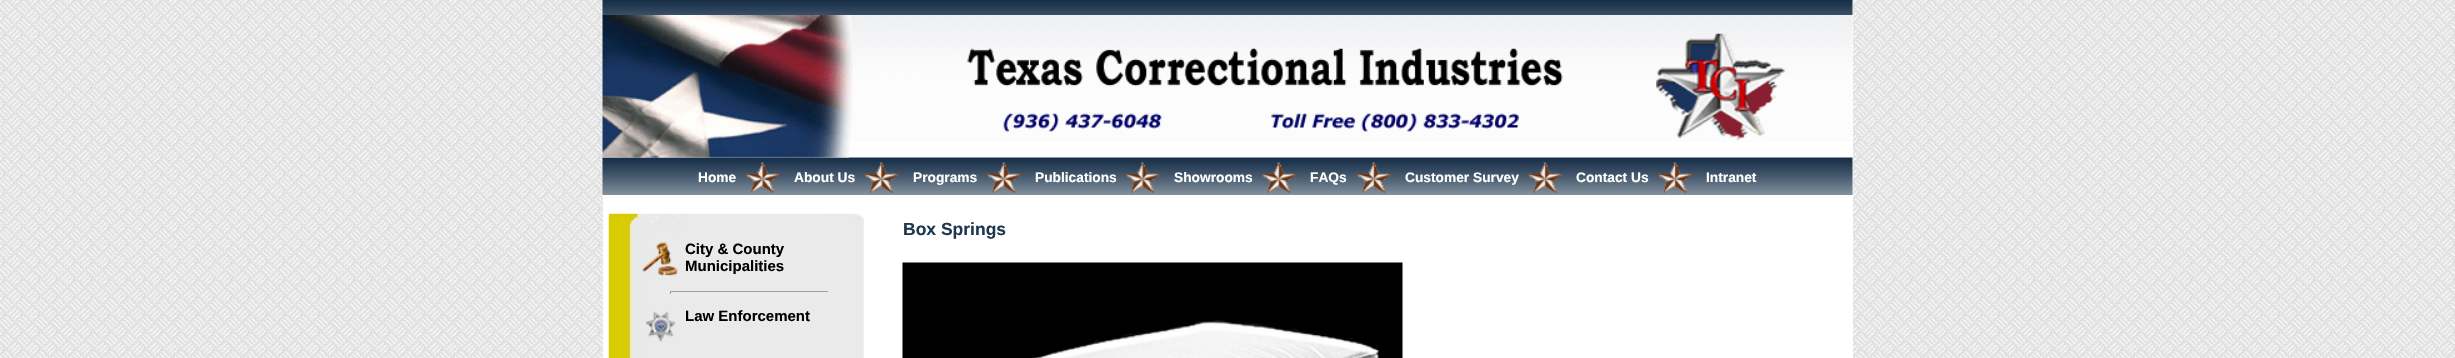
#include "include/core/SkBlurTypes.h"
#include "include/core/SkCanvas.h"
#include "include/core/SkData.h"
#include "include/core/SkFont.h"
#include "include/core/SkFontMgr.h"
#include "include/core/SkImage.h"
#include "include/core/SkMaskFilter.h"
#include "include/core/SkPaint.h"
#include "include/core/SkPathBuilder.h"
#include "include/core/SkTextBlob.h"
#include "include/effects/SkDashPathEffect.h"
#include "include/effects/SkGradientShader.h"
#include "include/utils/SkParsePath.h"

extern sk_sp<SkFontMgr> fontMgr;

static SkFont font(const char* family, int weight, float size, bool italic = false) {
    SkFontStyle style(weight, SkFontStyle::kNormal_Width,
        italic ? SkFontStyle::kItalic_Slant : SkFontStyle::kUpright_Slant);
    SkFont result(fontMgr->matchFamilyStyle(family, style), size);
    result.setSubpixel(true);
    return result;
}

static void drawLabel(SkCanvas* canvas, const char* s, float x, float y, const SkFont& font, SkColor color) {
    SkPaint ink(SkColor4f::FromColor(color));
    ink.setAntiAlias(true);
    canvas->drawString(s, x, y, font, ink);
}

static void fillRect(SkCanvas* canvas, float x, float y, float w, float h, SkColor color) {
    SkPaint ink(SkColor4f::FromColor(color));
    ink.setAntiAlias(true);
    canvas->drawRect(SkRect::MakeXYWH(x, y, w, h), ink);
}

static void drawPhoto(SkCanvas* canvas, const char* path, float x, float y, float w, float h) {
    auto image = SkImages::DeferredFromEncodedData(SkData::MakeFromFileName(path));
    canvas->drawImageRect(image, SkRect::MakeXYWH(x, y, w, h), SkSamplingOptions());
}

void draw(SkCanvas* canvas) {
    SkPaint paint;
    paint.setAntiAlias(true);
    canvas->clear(0xFFFFFFFF);
    drawPhoto(canvas, "assets/img1.png", 0, 0, 2455, 358);
    drawPhoto(canvas, "assets/img2.png", 13, 0, 2430, 358);
    fillRect(canvas, 603, 15, 1250, 343, 0xFFFFFFFF);
    drawPhoto(canvas, "assets/img3.png", 602, 0, 1251, 142);
    fillRect(canvas, 1852, 0, 1, 15, 0xFFFFFFFF);
    drawPhoto(canvas, "assets/img4.png", 602, 0, 1251, 15);
    drawPhoto(canvas, "assets/img8.png", 602, 157, 1251, 38);
    drawPhoto(canvas, "assets/img5.png", 602, 15, 251, 143);
    drawPhoto(canvas, "assets/img6.png", 967, 48, 596, 84);
    drawPhoto(canvas, "assets/img7.png", 1656, 33, 129, 107);
    SkFont font1 = font("Liberation Sans", 700, 13.75f);
    drawLabel(canvas, "Home", 698, 182, font1, 0xFFFFFFFF);
    drawPhoto(canvas, "assets/img9.png", 745, 162, 36, 31);
    drawLabel(canvas, "About Us", 794, 182, font1, 0xFFFFFFFF);
    drawPhoto(canvas, "assets/img10.png", 863, 162, 36, 31);
    drawLabel(canvas, "Programs", 913, 182, font1, 0xFFFFFFFF);
    drawPhoto(canvas, "assets/img11.png", 986, 162, 36, 31);
    drawLabel(canvas, "Publications", 1035, 182, font1, 0xFFFFFFFF);
    drawPhoto(canvas, "assets/img12.png", 1125, 162, 36, 31);
    drawLabel(canvas, "Showrooms", 1174, 182, font1, 0xFFFFFFFF);
    drawPhoto(canvas, "assets/img13.png", 1261, 162, 36, 31);
    drawLabel(canvas, "FAQs", 1310, 182, font1, 0xFFFFFFFF);
    drawPhoto(canvas, "assets/img14.png", 1356, 162, 36, 31);
    drawLabel(canvas, "Customer Survey", 1405, 182, font1, 0xFFFFFFFF);
    drawPhoto(canvas, "assets/img15.png", 1527, 162, 36, 31);
    drawLabel(canvas, "Contact Us", 1576, 182, font1, 0xFFFFFFFF);
    drawPhoto(canvas, "assets/img16.png", 1657, 162, 36, 31);
    drawLabel(canvas, "Intranet", 1706, 182, font1, 0xFFFFFFFF);
    SkFont font2 = font("Liberation Sans", 700, 17.5f);
    drawLabel(canvas, "Box Springs", 903, 235, font2, 0xFF1E364E);
    drawPhoto(canvas, "assets/img17.png", 902, 262, 501, 96);
    drawPhoto(canvas, "assets/img18.png", 608, 213, 256, 145);
    drawPhoto(canvas, "assets/img19.png", 642, 242, 36, 34);
    SkFont font3 = font("Liberation Sans", 700, 15);
    drawLabel(canvas, "City & County", 685, 254, font3, 0xFF000000);
    drawLabel(canvas, "Municipalities", 685, 271, font3, 0xFF000000);
    fillRect(canvas, 670, 291, 159, 1, 0xFF9F9F9F);
    fillRect(canvas, 828, 291, 1, 3, 0xFFEEEEEE);
    fillRect(canvas, 670, 293, 159, 1, 0xFFEEEEEE);
    fillRect(canvas, 670, 291, 1, 3, 0xFF9F9F9F);
    drawPhoto(canvas, "assets/img20.png", 645, 311, 31, 31);
    drawLabel(canvas, "Law Enforcement", 685, 321, font3, 0xFF000000);
}
